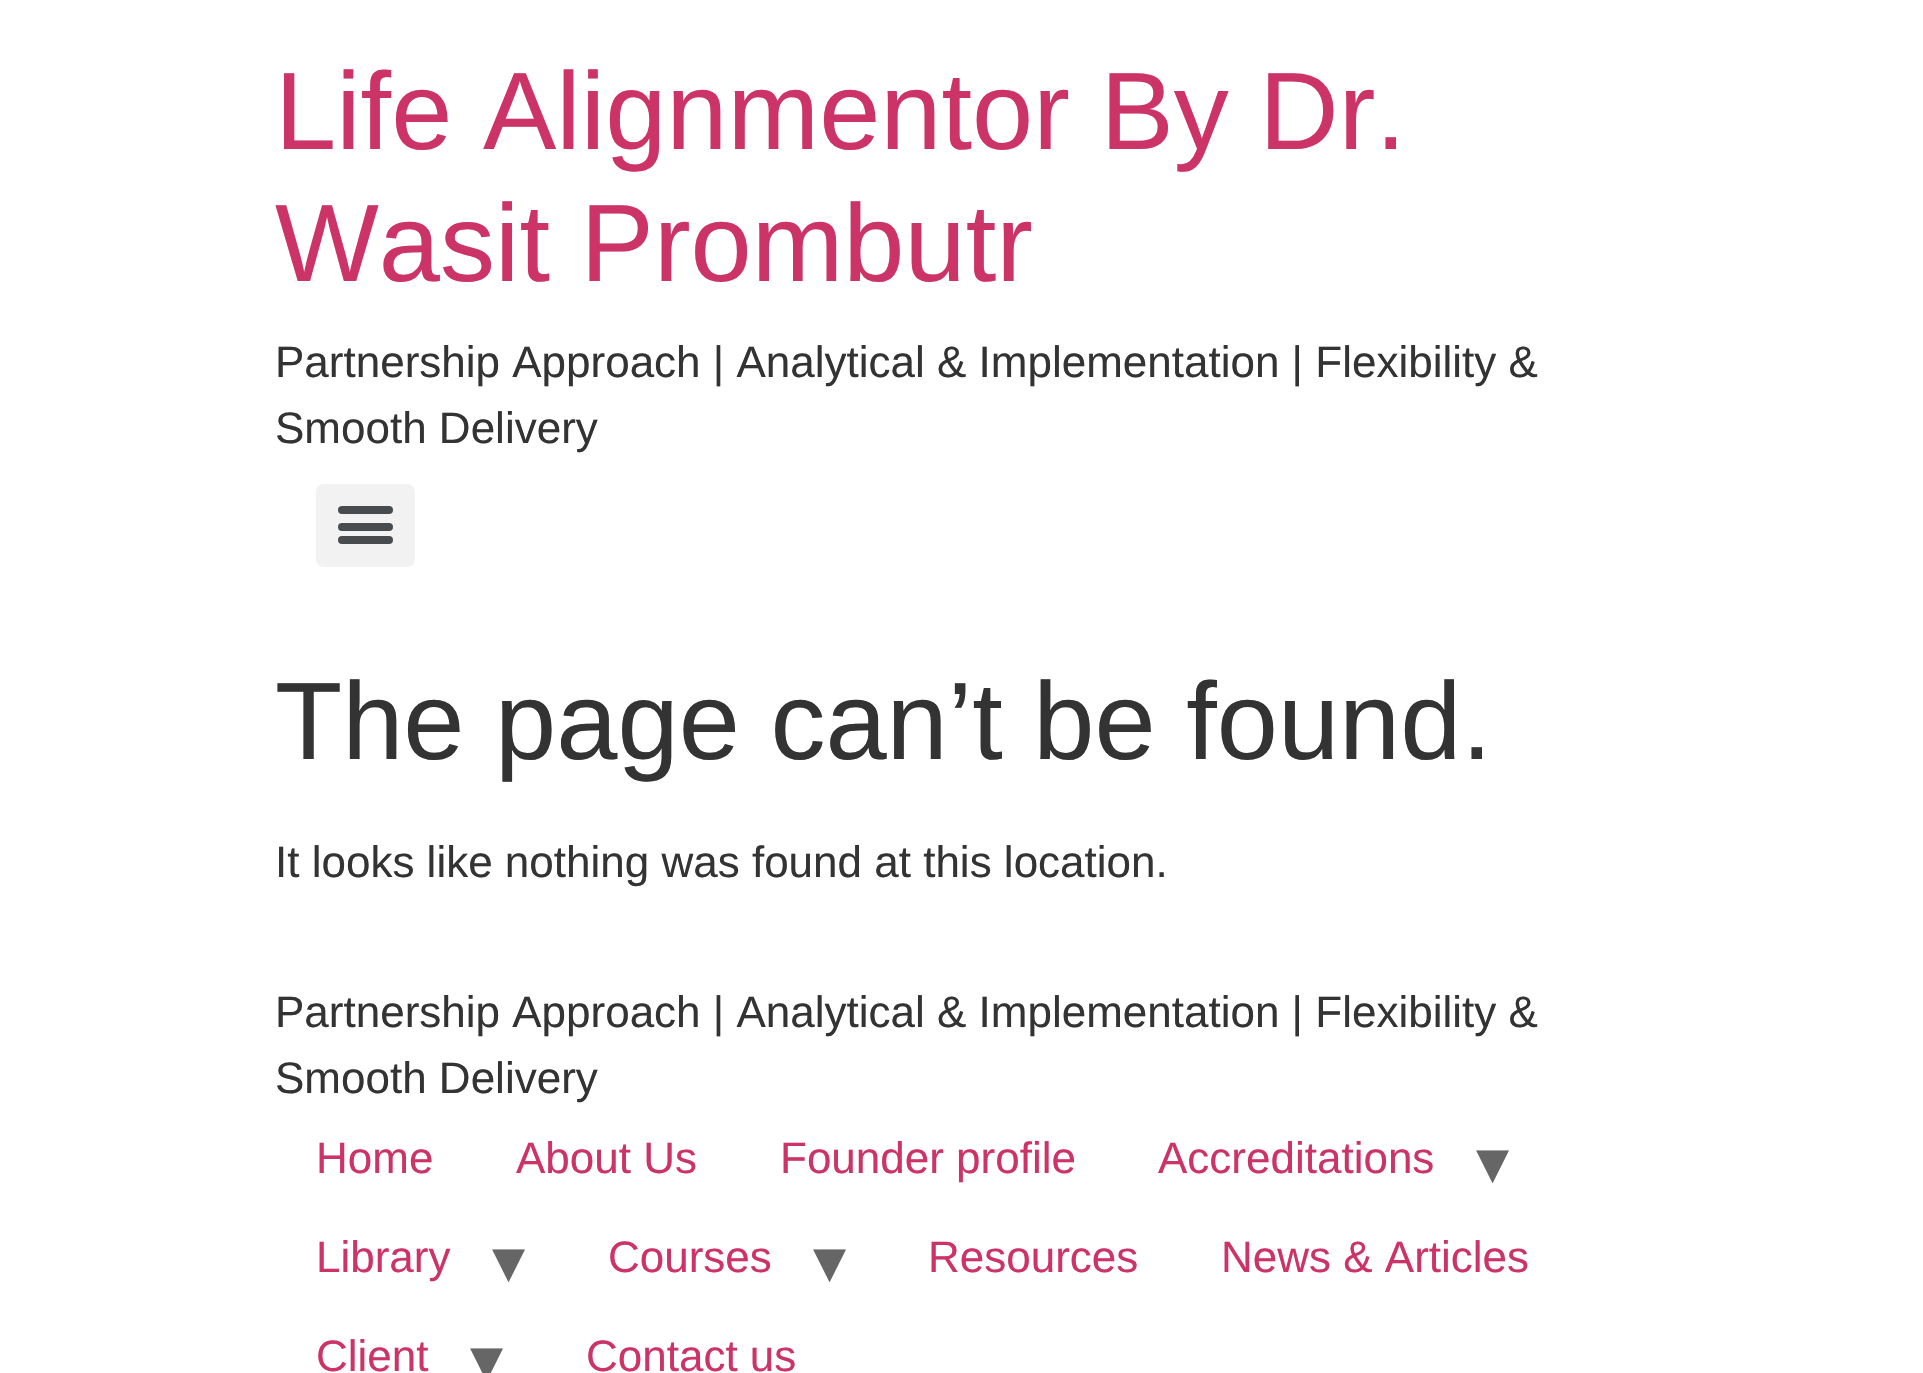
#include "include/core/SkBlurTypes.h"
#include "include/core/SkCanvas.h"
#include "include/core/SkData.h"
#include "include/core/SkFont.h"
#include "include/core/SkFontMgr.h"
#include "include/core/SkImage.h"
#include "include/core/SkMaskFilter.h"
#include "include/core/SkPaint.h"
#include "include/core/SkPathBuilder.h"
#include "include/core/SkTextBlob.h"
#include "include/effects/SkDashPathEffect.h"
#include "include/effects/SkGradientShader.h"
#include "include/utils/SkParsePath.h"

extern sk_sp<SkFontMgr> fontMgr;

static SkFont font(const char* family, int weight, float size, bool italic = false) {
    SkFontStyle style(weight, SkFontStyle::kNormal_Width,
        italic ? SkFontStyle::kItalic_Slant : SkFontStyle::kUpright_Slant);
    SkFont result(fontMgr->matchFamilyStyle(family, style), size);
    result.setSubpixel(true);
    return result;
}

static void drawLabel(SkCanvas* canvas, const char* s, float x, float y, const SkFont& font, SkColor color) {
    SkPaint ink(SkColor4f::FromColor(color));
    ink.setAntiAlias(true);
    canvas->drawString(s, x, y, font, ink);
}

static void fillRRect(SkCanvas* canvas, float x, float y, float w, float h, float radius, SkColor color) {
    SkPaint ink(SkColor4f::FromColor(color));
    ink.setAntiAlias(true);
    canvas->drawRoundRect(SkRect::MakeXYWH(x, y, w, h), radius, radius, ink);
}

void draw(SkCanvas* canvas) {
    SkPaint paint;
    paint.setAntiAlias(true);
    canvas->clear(0xFFFFFFFF);
    SkFont font1 = font("Liberation Sans", 400, 110);
    drawLabel(canvas, "Life Alignmentor By Dr.", 275, 149, font1, 0xFFCC3366);
    drawLabel(canvas, "Wasit Prombutr", 275, 281, font1, 0xFFCC3366);
    SkFont font2 = font("Liberation Sans", 400, 44);
    drawLabel(canvas, "Partnership Approach | Analytical & Implementation | Flexibility &", 275, 377, font2, 0xFF333333);
    drawLabel(canvas, "Smooth Delivery", 275, 443, font2, 0xFF333333);
    fillRRect(canvas, 316, 484, 99, 83, 8, 0xFFF2F2F2);
    fillRRect(canvas, 338, 523, 55, 8, 4, 0xFF494C4F);
    fillRRect(canvas, 338, 506, 55, 8, 4, 0xFF494C4F);
    fillRRect(canvas, 338, 536, 55, 8, 4, 0xFF494C4F);
    drawLabel(canvas, "The page can’t be found.", 275, 759, font1, 0xFF333333);
    drawLabel(canvas, "It looks like nothing was found at this location.", 275, 877, font2, 0xFF333333);
    drawLabel(canvas, "Partnership Approach | Analytical & Implementation | Flexibility &", 275, 1027, font2, 0xFF333333);
    drawLabel(canvas, "Smooth Delivery", 275, 1093, font2, 0xFF333333);
    drawLabel(canvas, "Home", 316, 1173, font2, 0xFFCC3366);
    drawLabel(canvas, "About Us", 516, 1173, font2, 0xFFCC3366);
    drawLabel(canvas, "Founder profile", 780, 1173, font2, 0xFFCC3366);
    drawLabel(canvas, "Accreditations", 1158, 1173, font2, 0xFFCC3366);
    SkFont font3 = font("DejaVu Sans", 400, 66);
    drawLabel(canvas, "▾", 1476, 1184, font3, 0xFF666666);
    drawLabel(canvas, "Library", 316, 1272, font2, 0xFFCC3366);
    drawLabel(canvas, "▾", 492, 1283, font3, 0xFF666666);
    drawLabel(canvas, "Courses", 608, 1272, font2, 0xFFCC3366);
    drawLabel(canvas, "▾", 813, 1283, font3, 0xFF666666);
    drawLabel(canvas, "Resources", 928, 1272, font2, 0xFFCC3366);
    drawLabel(canvas, "News & Articles", 1221, 1272, font2, 0xFFCC3366);
    drawLabel(canvas, "Client", 316, 1371, font2, 0xFFCC3366);
    drawLabel(canvas, "▾", 470, 1382, font3, 0xFF666666);
    drawLabel(canvas, "Contact us", 586, 1371, font2, 0xFFCC3366);
}
